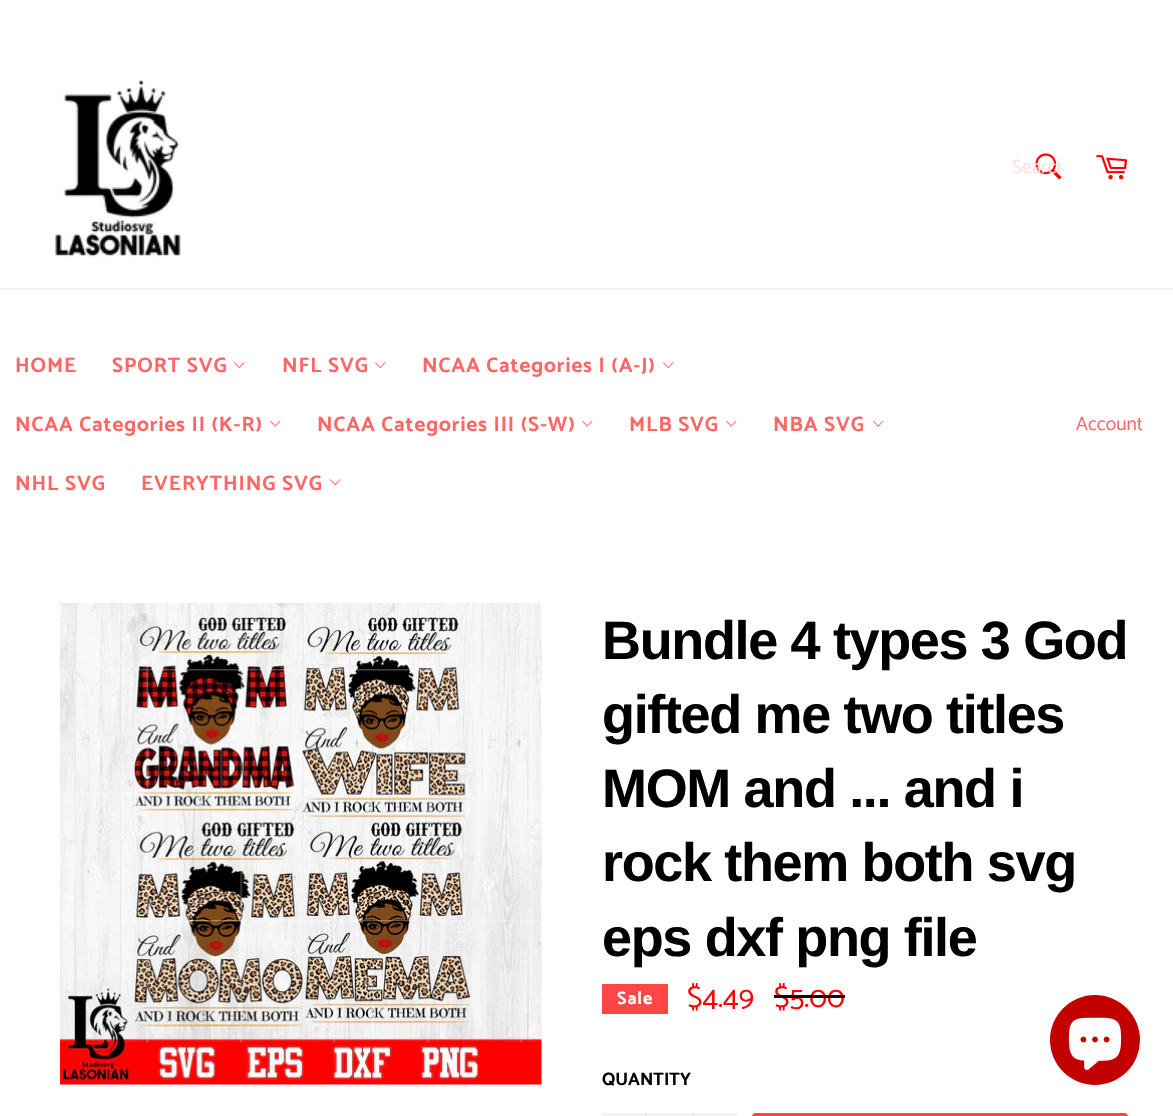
#include "include/core/SkBlurTypes.h"
#include "include/core/SkCanvas.h"
#include "include/core/SkData.h"
#include "include/core/SkFont.h"
#include "include/core/SkFontMgr.h"
#include "include/core/SkImage.h"
#include "include/core/SkMaskFilter.h"
#include "include/core/SkPaint.h"
#include "include/core/SkPathBuilder.h"
#include "include/core/SkTextBlob.h"
#include "include/effects/SkDashPathEffect.h"
#include "include/effects/SkGradientShader.h"
#include "include/utils/SkParsePath.h"

extern sk_sp<SkFontMgr> fontMgr;

static SkFont font(const char* family, int weight, float size, bool italic = false) {
    SkFontStyle style(weight, SkFontStyle::kNormal_Width,
        italic ? SkFontStyle::kItalic_Slant : SkFontStyle::kUpright_Slant);
    SkFont result(fontMgr->matchFamilyStyle(family, style), size);
    result.setSubpixel(true);
    return result;
}

static void drawLabel(SkCanvas* canvas, const char* s, float x, float y, const SkFont& font, SkColor color) {
    SkPaint ink(SkColor4f::FromColor(color));
    ink.setAntiAlias(true);
    canvas->drawString(s, x, y, font, ink);
}

static void drawTracked(SkCanvas* canvas, const char* s, float x, float y, const SkFont& font, const SkPaint& ink, float letter, float word) {
    std::vector<SkGlyphID> glyphs(font.countText(s, strlen(s), SkTextEncoding::kUTF8));
    std::vector<float> xs(glyphs.size());
    font.textToGlyphs(s, strlen(s), SkTextEncoding::kUTF8, glyphs);
    font.getXPos(glyphs, xs, x);
    float extra = 0;
    for (size_t i = 0; i < glyphs.size(); i++) {
        xs[i] += extra;
        extra += letter + word * (glyphs[i] == font.unicharToGlyph(' '));
    }
    canvas->drawTextBlob(SkTextBlob::MakeFromPosHGlyphs(glyphs, xs, y, font), 0, 0, ink);
}

static void fillRect(SkCanvas* canvas, float x, float y, float w, float h, SkColor color) {
    SkPaint ink(SkColor4f::FromColor(color));
    ink.setAntiAlias(true);
    canvas->drawRect(SkRect::MakeXYWH(x, y, w, h), ink);
}

static void fillRRect(SkCanvas* canvas, float x, float y, float w, float h, float radius, SkColor color) {
    SkPaint ink(SkColor4f::FromColor(color));
    ink.setAntiAlias(true);
    canvas->drawRoundRect(SkRect::MakeXYWH(x, y, w, h), radius, radius, ink);
}

static void drawPhoto(SkCanvas* canvas, const char* path, float x, float y, float w, float h) {
    auto image = SkImages::DeferredFromEncodedData(SkData::MakeFromFileName(path));
    canvas->drawImageRect(image, SkRect::MakeXYWH(x, y, w, h), SkSamplingOptions());
}

void draw(SkCanvas* canvas) {
    SkPaint paint;
    paint.setAntiAlias(true);
    canvas->clear(0xFFFFFFFF);
    drawPhoto(canvas, "assets/img1.png", 55, 79, 126, 179);
    drawPhoto(canvas, "assets/img2.png", 1035, 153, 27, 27);
    canvas->save();
    canvas->clipRect(SkRect::MakeXYWH(1013, 153, 48, 32));
    SkFont font1 = font("Catamaran", 400, 19.5f);
    drawLabel(canvas, "Search", 1012, 173, font1, 0xFFFFDEDE);
    canvas->restore();
    drawPhoto(canvas, "assets/img3.png", 1096, 155, 31, 25);
    fillRect(canvas, 0, 288, 1173, 2, 0xFFF2F2F2);
    SkFont font2 = font("Catamaran", 700, 21);
    paint.setColor(0xFFFF6666);
    drawTracked(canvas, "HOME", 15, 372, font2, paint, 0.9f, 0);
    drawTracked(canvas, "SPORT SVG", 112, 372, font2, paint, 0.9f, 0);
    drawPhoto(canvas, "assets/img4.png", 234, 362, 11, 7);
    drawTracked(canvas, "NFL SVG", 282, 372, font2, paint, 0.9f, 0);
    drawPhoto(canvas, "assets/img4.png", 375, 362, 11, 7);
    drawTracked(canvas, "NCAA Categories I (A-J)", 422, 372, font2, paint, 0.9f, 0);
    drawPhoto(canvas, "assets/img4.png", 663, 362, 11, 7);
    drawTracked(canvas, "NCAA Categories II (K-R)", 15, 431, font2, paint, 0.9f, 0);
    drawPhoto(canvas, "assets/img5.png", 270, 420, 11, 7);
    drawTracked(canvas, "NCAA Categories III (S-W)", 317, 431, font2, paint, 0.9f, 0);
    drawPhoto(canvas, "assets/img5.png", 582, 420, 11, 7);
    drawTracked(canvas, "MLB SVG", 629, 431, font2, paint, 0.9f, 0);
    drawPhoto(canvas, "assets/img5.png", 726, 420, 11, 7);
    drawTracked(canvas, "NBA SVG", 773, 431, font2, paint, 0.9f, 0);
    drawPhoto(canvas, "assets/img5.png", 873, 420, 11, 7);
    drawTracked(canvas, "NHL SVG", 15, 490, font2, paint, 0.9f, 0);
    drawTracked(canvas, "EVERYTHING SVG", 141, 490, font2, paint, 0.9f, 0);
    drawPhoto(canvas, "assets/img4.png", 330, 479, 11, 7);
    drawLabel(canvas, "Account", 1076, 430, font1, 0xFFFF6666);
    drawPhoto(canvas, "assets/img6.png", 60, 603, 482, 482);
    SkFont font3 = font("Liberation Sans", 700, 54);
    paint.setColor(0xFF000000);
    drawTracked(canvas, "Bundle 4 types 3 God", 602, 659, font3, paint, -1.35f, 0);
    drawTracked(canvas, "gifted me two titles", 602, 733, font3, paint, -1.35f, 0);
    drawTracked(canvas, "MOM and ... and i", 602, 807, font3, paint, -1.35f, 0);
    drawTracked(canvas, "rock them both svg", 602, 881, font3, paint, -1.35f, 0);
    drawTracked(canvas, "eps dxf png file", 602, 956, font3, paint, -1.35f, 0);
    fillRect(canvas, 602, 984, 66, 30, 0xFFFF4646);
    SkFont font4 = font("Catamaran", 700, 18);
    paint.setColor(0xFFFFFFFF);
    drawTracked(canvas, "Sale", 617, 1004, font4, paint, 0.9f, 0);
    SkFont font5 = font("Catamaran", 400, 30);
    drawLabel(canvas, "$4.49", 687, 1007, font5, 0xFFFF0000);
    drawLabel(canvas, "$5.00", 774, 1007, font5, 0xFFFF0000);
    fillRect(canvas, 774, 995, 71, 3, 0xFF0D0D0D);
    drawLabel(canvas, "QUANTITY", 602, 1085, font4, 0xFF000000);
    fillRect(canvas, 602, 1113, 135, 3, 0xFFF4F4F4);
    fillRect(canvas, 645, 1113, 2, 3, 0xFFE7E7E7);
    fillRect(canvas, 692, 1113, 2, 3, 0xFFE7E7E7);
    fillRRect(canvas, 752, 1113, 376, 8, 5, 0xFFFF4646);
    paint.setColor(0xFFC20000);
    canvas->drawCircle(1095, 1040, 45, paint);
    drawPhoto(canvas, "assets/img7.png", 1068, 1017, 54, 53);
}
